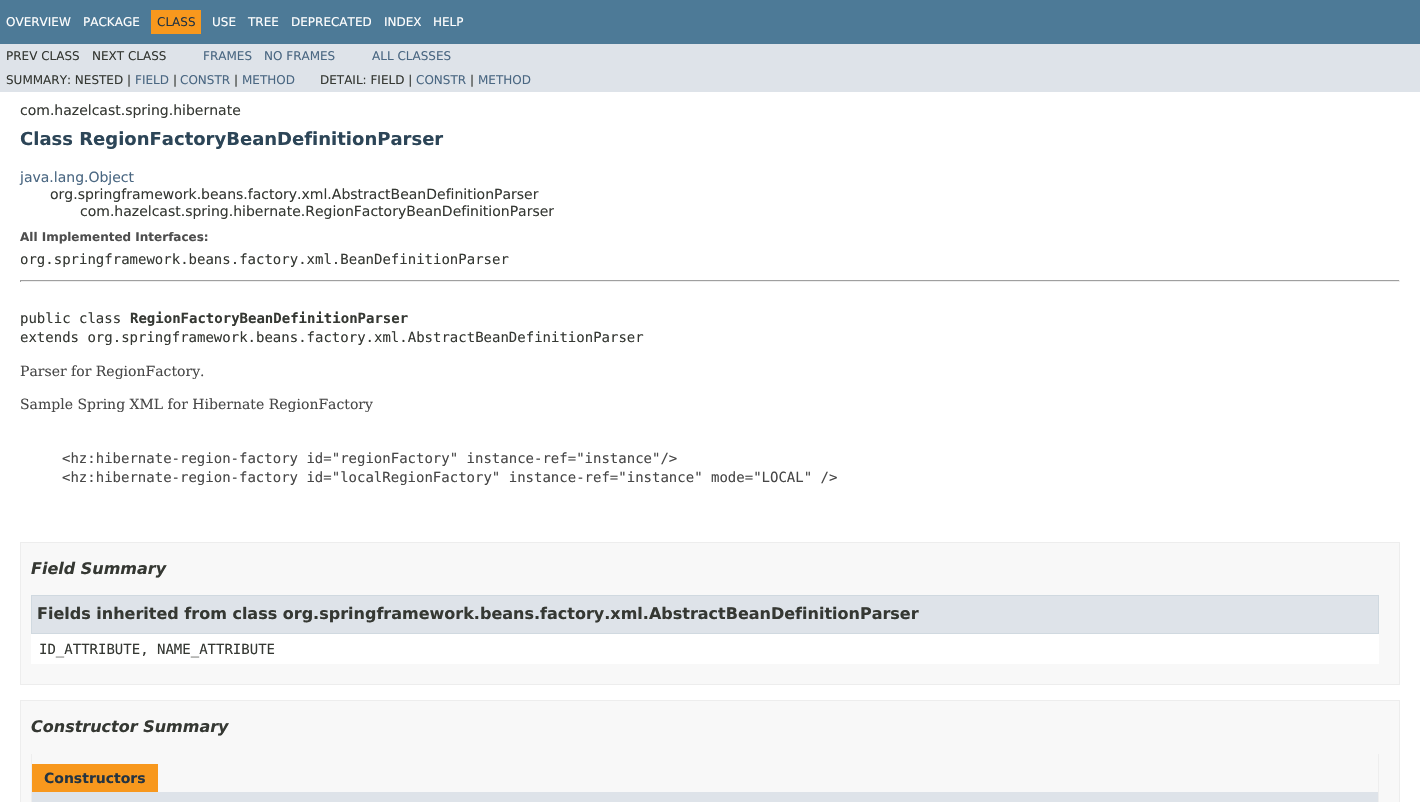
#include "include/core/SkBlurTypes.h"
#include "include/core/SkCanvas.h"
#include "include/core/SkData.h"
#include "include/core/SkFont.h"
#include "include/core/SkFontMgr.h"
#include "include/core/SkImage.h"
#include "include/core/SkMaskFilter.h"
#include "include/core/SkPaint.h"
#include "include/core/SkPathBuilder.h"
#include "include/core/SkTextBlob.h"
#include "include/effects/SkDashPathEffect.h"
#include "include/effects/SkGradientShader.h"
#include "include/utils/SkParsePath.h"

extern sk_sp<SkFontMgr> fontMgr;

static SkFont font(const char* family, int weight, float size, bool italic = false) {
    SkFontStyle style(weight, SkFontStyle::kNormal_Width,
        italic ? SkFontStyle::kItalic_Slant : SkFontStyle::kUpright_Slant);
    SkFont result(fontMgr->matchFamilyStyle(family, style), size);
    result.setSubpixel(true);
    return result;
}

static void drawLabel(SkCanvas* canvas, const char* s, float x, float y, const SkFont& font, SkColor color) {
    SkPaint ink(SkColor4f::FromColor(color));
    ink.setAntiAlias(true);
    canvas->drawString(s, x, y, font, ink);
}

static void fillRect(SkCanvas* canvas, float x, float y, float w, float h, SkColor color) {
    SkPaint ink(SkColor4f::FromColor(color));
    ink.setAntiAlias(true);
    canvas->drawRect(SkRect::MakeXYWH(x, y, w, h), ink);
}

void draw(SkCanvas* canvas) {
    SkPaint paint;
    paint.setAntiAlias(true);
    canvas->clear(0xFFFFFFFF);
    fillRect(canvas, 0, 0, 1420, 44, 0xFF4D7A97);
    SkFont font1 = font("DejaVu Sans", 400, 12);
    drawLabel(canvas, "OVERVIEW", 6, 26, font1, 0xFFFFFFFF);
    drawLabel(canvas, "PACKAGE", 83, 26, font1, 0xFFFFFFFF);
    fillRect(canvas, 151, 10, 50, 24, 0xFFF8981D);
    drawLabel(canvas, "CLASS", 157, 26, font1, 0xFF253441);
    drawLabel(canvas, "USE", 212, 26, font1, 0xFFFFFFFF);
    drawLabel(canvas, "TREE", 248, 26, font1, 0xFFFFFFFF);
    drawLabel(canvas, "DEPRECATED", 291, 26, font1, 0xFFFFFFFF);
    drawLabel(canvas, "INDEX", 384, 26, font1, 0xFFFFFFFF);
    drawLabel(canvas, "HELP", 433, 26, font1, 0xFFFFFFFF);
    fillRect(canvas, 0, 44, 1420, 48, 0xFFDEE3E9);
    drawLabel(canvas, "PREV CLASS", 6, 60, font1, 0xFF353833);
    drawLabel(canvas, "NEXT CLASS", 92, 60, font1, 0xFF353833);
    drawLabel(canvas, "FRAMES", 203, 60, font1, 0xFF4A6782);
    drawLabel(canvas, "NO FRAMES", 264, 60, font1, 0xFF4A6782);
    drawLabel(canvas, "ALL CLASSES", 372, 60, font1, 0xFF4A6782);
    drawLabel(canvas, "SUMMARY: NESTED |", 6, 84, font1, 0xFF353833);
    drawLabel(canvas, "FIELD", 135, 84, font1, 0xFF4A6782);
    drawLabel(canvas, "|", 173, 84, font1, 0xFF353833);
    drawLabel(canvas, "CONSTR", 180, 84, font1, 0xFF4A6782);
    drawLabel(canvas, "|", 234, 84, font1, 0xFF353833);
    drawLabel(canvas, "METHOD", 242, 84, font1, 0xFF4A6782);
    drawLabel(canvas, "DETAIL: FIELD |", 320, 84, font1, 0xFF353833);
    drawLabel(canvas, "CONSTR", 416, 84, font1, 0xFF4A6782);
    drawLabel(canvas, "|", 470, 84, font1, 0xFF353833);
    drawLabel(canvas, "METHOD", 478, 84, font1, 0xFF4A6782);
    SkFont font2 = font("DejaVu Sans", 400, 14);
    drawLabel(canvas, "com.hazelcast.spring.hibernate", 20, 115, font2, 0xFF353833);
    SkFont font3 = font("DejaVu Sans", 700, 18);
    drawLabel(canvas, "Class RegionFactoryBeanDefinitionParser", 20, 145, font3, 0xFF2C4557);
    drawLabel(canvas, "java.lang.Object", 20, 182, font2, 0xFF4A6782);
    drawLabel(canvas, "org.springframework.beans.factory.xml.AbstractBeanDefinitionParser", 50, 199, font2, 0xFF353833);
    drawLabel(canvas, "com.hazelcast.spring.hibernate.RegionFactoryBeanDefinitionParser", 80, 216, font2, 0xFF353833);
    SkFont font4 = font("DejaVu Sans", 700, 12);
    drawLabel(canvas, "All Implemented Interfaces:", 20, 241, font4, 0xFF4E4E4E);
    SkFont font5 = font("DejaVu Sans Mono", 400, 14);
    drawLabel(canvas, "org.springframework.beans.factory.xml.BeanDefinitionParser", 20, 264, font5, 0xFF353833);
    fillRect(canvas, 20, 280, 1380, 1, 0xFF9F9F9F);
    fillRect(canvas, 1399, 280, 1, 2, 0xFFEEEEEE);
    fillRect(canvas, 20, 281, 1380, 1, 0xFFEEEEEE);
    fillRect(canvas, 20, 280, 1, 2, 0xFF9F9F9F);
    drawLabel(canvas, "public class", 20, 323, font5, 0xFF353833);
    SkFont font6 = font("DejaVu Sans Mono", 700, 14);
    drawLabel(canvas, "RegionFactoryBeanDefinitionParser", 130, 323, font6, 0xFF353833);
    drawLabel(canvas, "extends org.springframework.beans.factory.xml.AbstractBeanDefinitionParser", 20, 342, font5, 0xFF353833);
    SkFont font7 = font("DejaVu Serif", 400, 14);
    drawLabel(canvas, "Parser for RegionFactory.", 20, 376, font7, 0xFF474747);
    drawLabel(canvas, "Sample Spring XML for Hibernate RegionFactory", 20, 409, font7, 0xFF474747);
    drawLabel(canvas, "<hz:hibernate-region-factory id=\"regionFactory\" instance-ref=\"instance\"/>", 62, 463, font5, 0xFF474747);
    drawLabel(canvas, "<hz:hibernate-region-factory id=\"localRegionFactory\" instance-ref=\"instance\" mode=\"LOCAL\" />", 62, 482, font5, 0xFF474747);
    paint.setColor(0xFFF8F8F8);
    canvas->drawRect(SkRect::MakeXYWH(20.5f, 542.5f, 1379, 142), paint);
    paint.setStroke(true);
    paint.setStrokeWidth(1);
    paint.setColor(0xFFEDEDED);
    canvas->drawRect(SkRect::MakeXYWH(20.5f, 542.5f, 1379, 142), paint);
    SkFont font8 = font("DejaVu Sans", 700, 16, true);
    drawLabel(canvas, "Field Summary", 31, 574, font8, 0xFF353833);
    fillRect(canvas, 31, 634, 1348, 30, 0xFFFFFFFF);
    paint.setStroke(false);
    paint.setColor(0xFFDEE3E9);
    canvas->drawRect(SkRect::MakeXYWH(31.5f, 595.5f, 1347, 38), paint);
    paint.setStroke(true);
    paint.setColor(0xFFD0D9E0);
    canvas->drawRect(SkRect::MakeXYWH(31.5f, 595.5f, 1347, 38), paint);
    SkFont font9 = font("DejaVu Sans", 700, 16);
    drawLabel(canvas, "Fields inherited from class org.springframework.beans.factory.xml.AbstractBeanDefinitionParser", 37, 619, font9, 0xFF353833);
    drawLabel(canvas, "ID_ATTRIBUTE, NAME_ATTRIBUTE", 39, 654, font5, 0xFF353833);
    paint.setStroke(false);
    paint.setColor(0xFFF8F8F8);
    canvas->drawRect(SkRect::MakeXYWH(20.5f, 700.5f, 1379, 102), paint);
    paint.setStroke(true);
    paint.setColor(0xFFEDEDED);
    canvas->drawRect(SkRect::MakeXYWH(20.5f, 700.5f, 1379, 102), paint);
    drawLabel(canvas, "Constructor Summary", 31, 732, font8, 0xFF353833);
    fillRect(canvas, 1378, 754, 1, 48, 0xFFEEEEEE);
    fillRect(canvas, 31, 754, 1, 48, 0xFFEEEEEE);
    fillRect(canvas, 32, 764, 126, 28, 0xFFF8981D);
    SkFont font10 = font("DejaVu Sans", 700, 14);
    drawLabel(canvas, "Constructors", 44, 783, font10, 0xFF253441);
    fillRect(canvas, 32, 792, 1346, 10, 0xFFDEE3E9);
}
